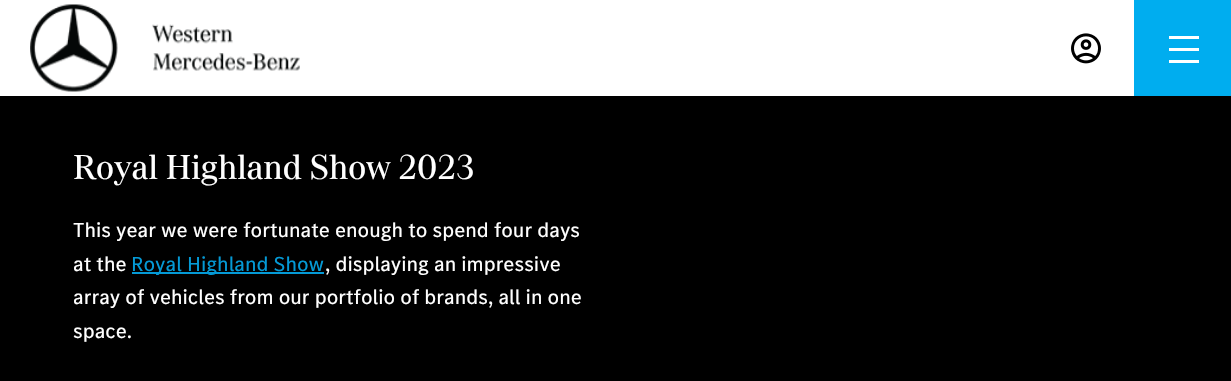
#include "include/core/SkBlurTypes.h"
#include "include/core/SkCanvas.h"
#include "include/core/SkData.h"
#include "include/core/SkFont.h"
#include "include/core/SkFontMgr.h"
#include "include/core/SkImage.h"
#include "include/core/SkMaskFilter.h"
#include "include/core/SkPaint.h"
#include "include/core/SkPathBuilder.h"
#include "include/core/SkTextBlob.h"
#include "include/effects/SkDashPathEffect.h"
#include "include/effects/SkGradientShader.h"
#include "include/utils/SkParsePath.h"

extern sk_sp<SkFontMgr> fontMgr;

static SkFont font(const char* family, int weight, float size, bool italic = false) {
    SkFontStyle style(weight, SkFontStyle::kNormal_Width,
        italic ? SkFontStyle::kItalic_Slant : SkFontStyle::kUpright_Slant);
    SkFont result(fontMgr->matchFamilyStyle(family, style), size);
    result.setSubpixel(true);
    return result;
}

static void drawLabel(SkCanvas* canvas, const char* s, float x, float y, const SkFont& font, SkColor color) {
    SkPaint ink(SkColor4f::FromColor(color));
    ink.setAntiAlias(true);
    canvas->drawString(s, x, y, font, ink);
}

static void fillRect(SkCanvas* canvas, float x, float y, float w, float h, SkColor color) {
    SkPaint ink(SkColor4f::FromColor(color));
    ink.setAntiAlias(true);
    canvas->drawRect(SkRect::MakeXYWH(x, y, w, h), ink);
}

static void drawPhoto(SkCanvas* canvas, const char* path, float x, float y, float w, float h) {
    auto image = SkImages::DeferredFromEncodedData(SkData::MakeFromFileName(path));
    canvas->drawImageRect(image, SkRect::MakeXYWH(x, y, w, h), SkSamplingOptions());
}

void draw(SkCanvas* canvas) {
    SkPaint paint;
    paint.setAntiAlias(true);
    canvas->clear(0xFF000000);
    fillRect(canvas, 0, 0, 1134, 96, 0xFFFFFFFF);
    drawPhoto(canvas, "assets/img1.png", 30, 4, 270, 88);
    drawPhoto(canvas, "assets/img2.png", 1071, 33, 30, 31);
    fillRect(canvas, 1134, 0, 97, 96, 0xFF00ADEF);
    fillRect(canvas, 1169, 60, 30, 3, 0xFFFFFFFF);
    fillRect(canvas, 1169, 36, 30, 3, 0xFFFFFFFF);
    fillRect(canvas, 1169, 48, 30, 3, 0xFFFFFFFF);
    SkFont font1 = font("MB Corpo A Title", 400, 36);
    drawLabel(canvas, "Royal Highland Show 2023", 73, 179, font1, 0xFFFFFFFF);
    SkFont font2 = font("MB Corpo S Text", 400, 21);
    drawLabel(canvas, "This year we were fortunate enough to spend four days", 73, 237, font2, 0xFFFFFFFF);
    drawLabel(canvas, "at the", 73, 271, font2, 0xFFFFFFFF);
    fillRect(canvas, 132, 272, 192, 2, 0xFF049AD6);
    drawLabel(canvas, "Royal Highland Show", 131, 271, font2, 0xFF049AD6);
    drawLabel(canvas, ", displaying an impressive", 325, 271, font2, 0xFFFFFFFF);
    drawLabel(canvas, "array of vehicles from our portfolio of brands, all in one", 73, 304, font2, 0xFFFFFFFF);
    drawLabel(canvas, "space.", 73, 338, font2, 0xFFFFFFFF);
}
